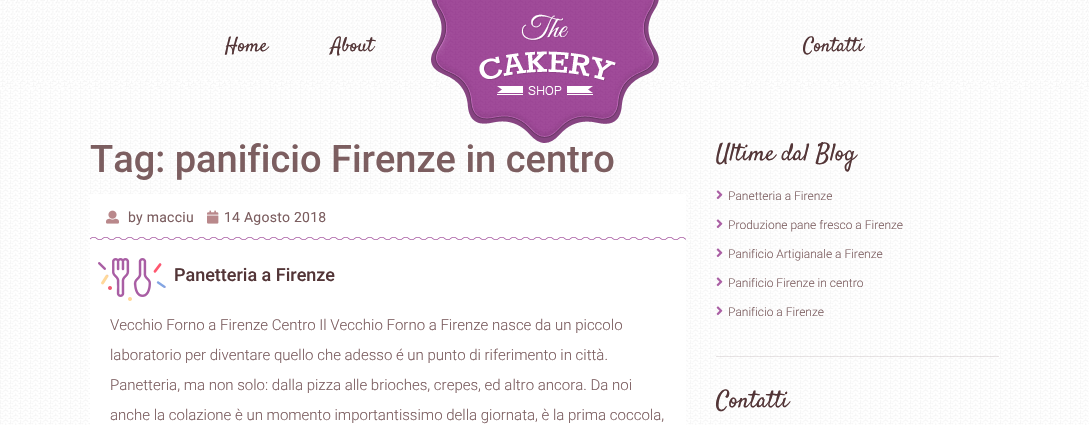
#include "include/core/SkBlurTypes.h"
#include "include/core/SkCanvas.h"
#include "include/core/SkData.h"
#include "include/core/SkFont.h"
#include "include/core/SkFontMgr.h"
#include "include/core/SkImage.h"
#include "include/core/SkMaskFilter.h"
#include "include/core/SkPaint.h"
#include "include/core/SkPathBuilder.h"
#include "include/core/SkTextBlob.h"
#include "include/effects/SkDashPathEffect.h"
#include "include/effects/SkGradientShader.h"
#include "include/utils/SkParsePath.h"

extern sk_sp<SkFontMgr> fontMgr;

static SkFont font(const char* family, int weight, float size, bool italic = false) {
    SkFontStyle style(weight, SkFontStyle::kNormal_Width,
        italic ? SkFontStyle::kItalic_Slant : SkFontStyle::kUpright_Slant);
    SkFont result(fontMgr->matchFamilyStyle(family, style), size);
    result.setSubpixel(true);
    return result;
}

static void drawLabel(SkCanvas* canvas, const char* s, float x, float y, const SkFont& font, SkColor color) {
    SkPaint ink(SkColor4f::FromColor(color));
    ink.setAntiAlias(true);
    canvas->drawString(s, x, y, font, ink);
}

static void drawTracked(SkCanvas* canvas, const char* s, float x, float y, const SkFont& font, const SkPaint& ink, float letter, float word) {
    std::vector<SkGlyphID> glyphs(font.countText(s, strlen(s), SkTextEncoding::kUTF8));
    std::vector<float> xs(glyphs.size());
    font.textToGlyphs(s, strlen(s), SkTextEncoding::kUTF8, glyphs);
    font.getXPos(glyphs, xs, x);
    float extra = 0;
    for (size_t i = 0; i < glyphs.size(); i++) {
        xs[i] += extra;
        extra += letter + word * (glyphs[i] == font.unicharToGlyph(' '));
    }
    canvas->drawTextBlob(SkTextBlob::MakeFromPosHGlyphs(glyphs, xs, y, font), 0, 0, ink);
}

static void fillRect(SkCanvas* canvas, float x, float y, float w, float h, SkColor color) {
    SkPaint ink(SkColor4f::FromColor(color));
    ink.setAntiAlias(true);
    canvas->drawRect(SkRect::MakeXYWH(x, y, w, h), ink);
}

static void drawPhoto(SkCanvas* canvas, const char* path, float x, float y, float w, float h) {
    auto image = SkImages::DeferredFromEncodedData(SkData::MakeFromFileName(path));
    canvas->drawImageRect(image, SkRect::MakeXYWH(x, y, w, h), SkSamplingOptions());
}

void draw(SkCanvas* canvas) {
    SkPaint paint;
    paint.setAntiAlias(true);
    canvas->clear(0xFFFFFFFF);
    drawPhoto(canvas, "assets/img1.png", 0, 80, 1089, 345);
    drawPhoto(canvas, "assets/img2.png", 0, 0, 1089, 80);
    drawPhoto(canvas, "assets/img4.png", 0, 80, 1089, 9);
    drawPhoto(canvas, "assets/img3.png", 431, 0, 228, 143);
    SkFont font1 = font("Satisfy", 400, 20);
    drawLabel(canvas, "Home", 225, 51, font1, 0xFF533537);
    drawLabel(canvas, "About", 331, 51, font1, 0xFF533537);
    drawLabel(canvas, "Contatti", 803, 51, font1, 0xFF533537);
    SkFont font2 = font("Roboto", 500, 38);
    drawLabel(canvas, "Tag: panificio Firenze in centro", 90, 172, font2, 0xFF7C5E60);
    fillRect(canvas, 90, 194, 596, 231, 0xFFFFFFFF);
    drawPhoto(canvas, "assets/img5.png", 106, 210, 13, 14);
    SkFont font3 = font("Roboto", 400, 14);
    paint.setColor(0xFF7C5E60);
    drawTracked(canvas, "by macciu", 128, 222, font3, paint, 0.25f, 0);
    drawPhoto(canvas, "assets/img6.png", 207, 210, 12, 14);
    drawTracked(canvas, "14 Agosto 2018", 224, 222, font3, paint, 0.25f, 0);
    drawPhoto(canvas, "assets/img7.png", 90, 237, 596, 3);
    drawPhoto(canvas, "assets/img8.png", 98, 258, 68, 43);
    SkFont font4 = font("Roboto", 500, 18);
    drawLabel(canvas, "Panetteria a Firenze", 174, 281, font4, 0xFF533537);
    SkFont font5 = font("Roboto", 300, 15);
    drawLabel(canvas, "Vecchio Forno a Firenze Centro Il Vecchio Forno a Firenze nasce da un piccolo", 110, 330, font5, 0xFF7C5E60);
    drawLabel(canvas, "laboratorio per diventare quello che adesso é un punto di riferimento in città.", 110, 360, font5, 0xFF7C5E60);
    drawLabel(canvas, "Panetteria, ma non solo: dalla pizza alle brioches, crepes, ed altro ancora. Da noi", 110, 390, font5, 0xFF7C5E60);
    drawLabel(canvas, "anche la colazione è un momento importantissimo della giornata, è la prima coccola,", 110, 420, font5, 0xFF7C5E60);
    fillRect(canvas, 716, 356, 283, 1, 0x1F533537);
    SkFont font6 = font("Satisfy", 400, 24);
    drawLabel(canvas, "Ultime dal Blog", 716, 160, font6, 0xFF533537);
    drawPhoto(canvas, "assets/img9.png", 716, 190, 7, 10);
    SkFont font7 = font("Roboto", 300, 12);
    drawLabel(canvas, "Panetteria a Firenze", 728, 200, font7, 0xFF7C5E60);
    drawPhoto(canvas, "assets/img10.png", 716, 219, 7, 10);
    drawLabel(canvas, "Produzione pane fresco a Firenze", 728, 229, font7, 0xFF7C5E60);
    drawPhoto(canvas, "assets/img11.png", 716, 248, 7, 10);
    drawLabel(canvas, "Panificio Artigianale a Firenze", 728, 258, font7, 0xFF7C5E60);
    drawPhoto(canvas, "assets/img12.png", 716, 277, 7, 10);
    drawLabel(canvas, "Panificio Firenze in centro", 728, 287, font7, 0xFF7C5E60);
    drawPhoto(canvas, "assets/img13.png", 716, 306, 7, 10);
    drawLabel(canvas, "Panificio a Firenze", 728, 316, font7, 0xFF7C5E60);
    drawLabel(canvas, "Contatti", 716, 407, font6, 0xFF533537);
}
